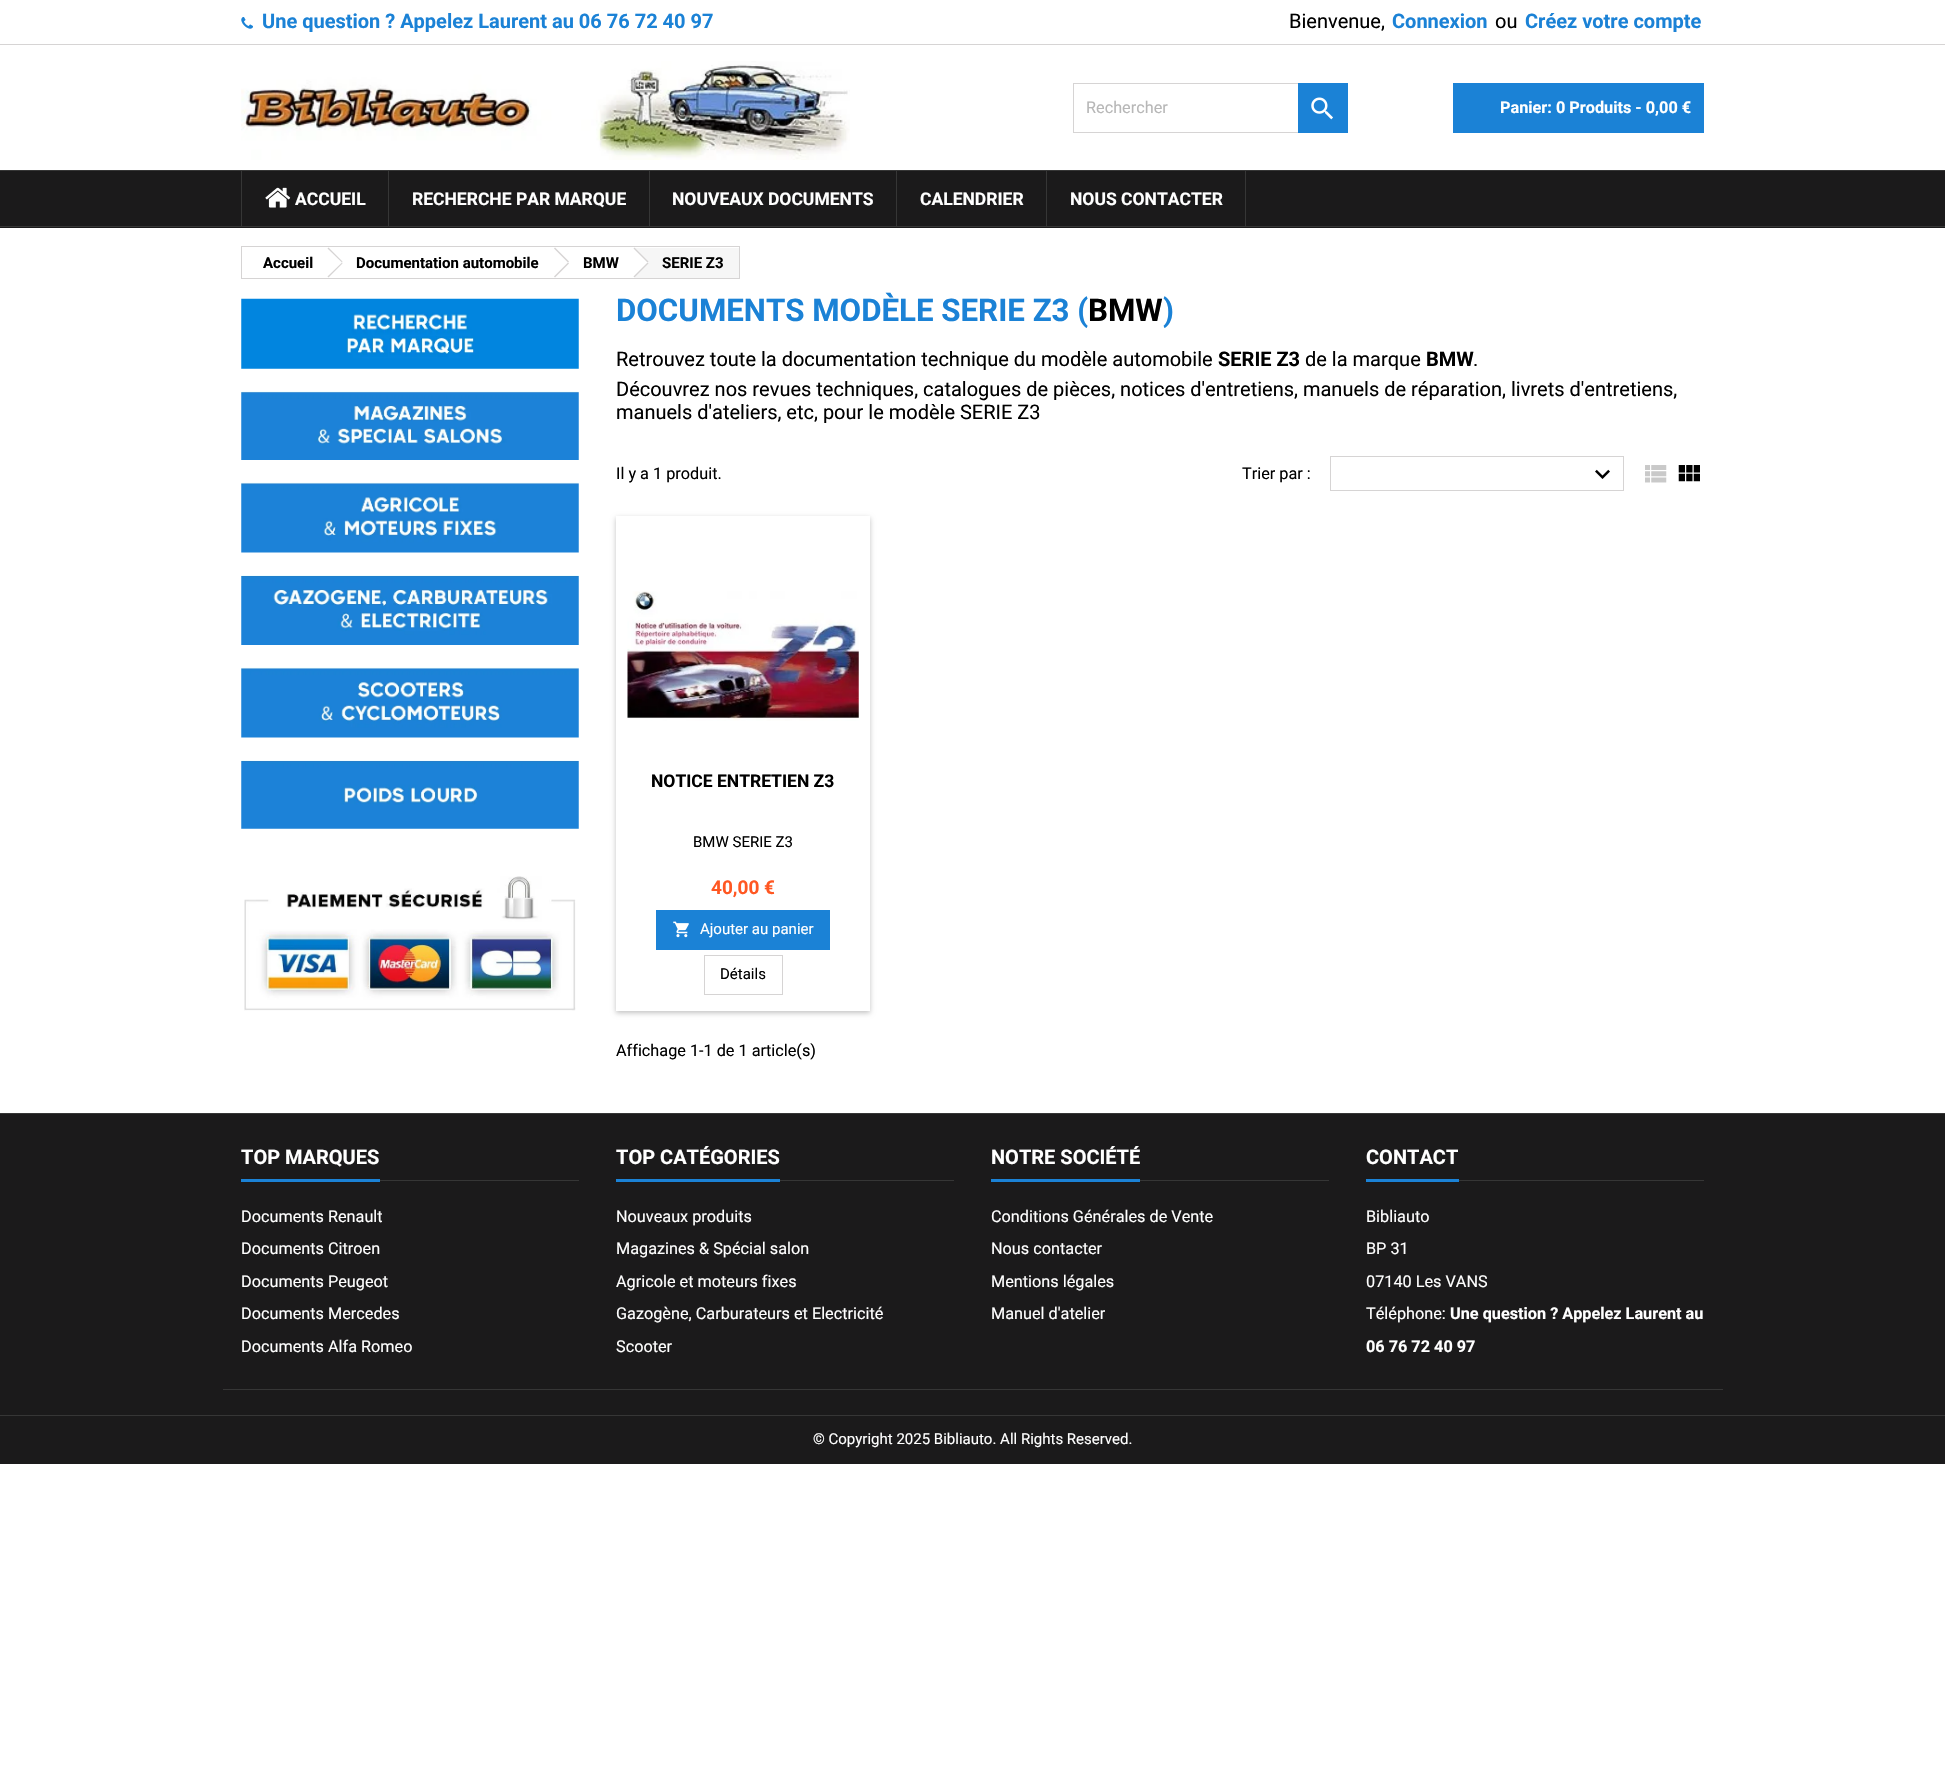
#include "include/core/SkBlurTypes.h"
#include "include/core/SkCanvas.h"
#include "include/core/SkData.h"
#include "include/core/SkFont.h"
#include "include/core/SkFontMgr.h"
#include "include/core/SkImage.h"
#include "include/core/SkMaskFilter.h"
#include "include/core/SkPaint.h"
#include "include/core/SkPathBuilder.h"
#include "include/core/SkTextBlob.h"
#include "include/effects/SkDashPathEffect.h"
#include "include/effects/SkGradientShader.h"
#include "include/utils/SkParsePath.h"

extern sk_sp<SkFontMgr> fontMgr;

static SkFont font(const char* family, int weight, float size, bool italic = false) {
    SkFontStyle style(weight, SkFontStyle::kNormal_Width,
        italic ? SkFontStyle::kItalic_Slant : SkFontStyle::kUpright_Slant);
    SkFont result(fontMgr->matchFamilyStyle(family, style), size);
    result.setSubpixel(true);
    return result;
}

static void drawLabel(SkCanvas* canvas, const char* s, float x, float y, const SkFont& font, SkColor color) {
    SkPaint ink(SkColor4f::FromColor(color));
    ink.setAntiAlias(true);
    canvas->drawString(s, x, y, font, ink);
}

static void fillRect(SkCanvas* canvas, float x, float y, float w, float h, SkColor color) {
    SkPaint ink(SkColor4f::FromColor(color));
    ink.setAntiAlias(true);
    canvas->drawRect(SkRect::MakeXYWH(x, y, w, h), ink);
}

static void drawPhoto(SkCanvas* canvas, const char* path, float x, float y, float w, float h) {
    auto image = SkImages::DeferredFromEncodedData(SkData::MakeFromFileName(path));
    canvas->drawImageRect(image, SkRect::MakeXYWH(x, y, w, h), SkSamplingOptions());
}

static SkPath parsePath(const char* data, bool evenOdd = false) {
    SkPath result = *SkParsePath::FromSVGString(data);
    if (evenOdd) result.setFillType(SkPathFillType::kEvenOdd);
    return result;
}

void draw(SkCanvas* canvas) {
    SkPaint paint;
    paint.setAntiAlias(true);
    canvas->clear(0xFFFFFFFF);
    fillRect(canvas, 0, 44, 1945, 1, 0xFFD6D4D4);
    drawPhoto(canvas, "assets/img1.png", 241, 17, 12, 12);
    SkFont font1 = font("Roboto", 700, 20);
    drawLabel(canvas, "Une question ? Appelez Laurent au 06 76 72 40 97", 262, 28, font1, 0xFF1B82D6);
    SkFont font2 = font("Roboto", 400, 20);
    drawLabel(canvas, "Bienvenue,", 1289, 28, font2, 0xFF000000);
    drawLabel(canvas, "Connexion", 1392, 28, font1, 0xFF1B82D6);
    drawLabel(canvas, "ou", 1495, 28, font2, 0xFF000000);
    drawLabel(canvas, "Créez votre compte", 1525, 28, font1, 0xFF1B82D6);
    drawPhoto(canvas, "assets/img2.png", 241, 61, 609, 99);
    paint.setStroke(true);
    paint.setStrokeWidth(1);
    paint.setColor(0xFFD6D4D4);
    canvas->drawRect(SkRect::MakeXYWH(1073.5f, 83.5f, 274, 49), paint);
    SkFont font3 = font("Roboto", 400, 16.25f);
    drawLabel(canvas, "Rechercher", 1086, 113, font3, 0xFFB7B7B7);
    fillRect(canvas, 1298, 83, 50, 50, 0xFF1B82D6);
    drawPhoto(canvas, "assets/img3.png", 1311, 97, 22, 23);
    fillRect(canvas, 1453, 83, 251, 50, 0xFF1B82D6);
    SkFont font4 = font("Roboto", 700, 16.25f);
    drawLabel(canvas, "Panier: 0 Produits - 0,00 €", 1500, 113, font4, 0xFFFFFFFF);
    fillRect(canvas, 0, 171, 1945, 57, 0xFF1B1A1B);
    fillRect(canvas, 0, 170, 1945, 1, 0xFF363636);
    fillRect(canvas, 0, 226, 1945, 1, 0xFF363636);
    fillRect(canvas, 241, 171, 1, 55, 0xFF363636);
    drawPhoto(canvas, "assets/img4.png", 265, 187, 26, 21);
    SkFont font5 = font("Roboto", 700, 17.5f);
    drawLabel(canvas, "ACCUEIL", 295, 205, font5, 0xFFFFFFFF);
    fillRect(canvas, 388, 171, 1, 55, 0xFF363636);
    drawLabel(canvas, "RECHERCHE PAR MARQUE", 412, 205, font5, 0xFFFFFFFF);
    fillRect(canvas, 649, 171, 1, 55, 0xFF363636);
    drawLabel(canvas, "NOUVEAUX DOCUMENTS", 672, 205, font5, 0xFFFFFFFF);
    fillRect(canvas, 896, 171, 1, 55, 0xFF363636);
    drawLabel(canvas, "CALENDRIER", 920, 205, font5, 0xFFFFFFFF);
    fillRect(canvas, 1245, 171, 1, 55, 0xFF363636);
    fillRect(canvas, 1046, 171, 1, 55, 0xFF363636);
    drawLabel(canvas, "NOUS CONTACTER", 1070, 205, font5, 0xFFFFFFFF);
    canvas->drawRect(SkRect::MakeXYWH(241.5f, 246.5f, 498, 32), paint);
    SkFont font6 = font("Roboto", 700, 15);
    drawLabel(canvas, "Accueil", 263, 268, font6, 0xFF000000);
    paint.setStroke(false);
    canvas->drawPath(parsePath("M328.5 247.5L342.5 261.5L342 262.5L327.5 248.5Z"), paint);
    canvas->drawPath(parsePath("M342 262.5L342.5 263.5L328.5 277.5L327.5 276.5Z"), paint);
    drawLabel(canvas, "Documentation automobile", 356, 268, font6, 0xFF000000);
    canvas->drawPath(parsePath("M555 247.5L569 261.5L568 262.5L554 248.5Z"), paint);
    canvas->drawPath(parsePath("M568 262.5L569 263.5L555 277.5L554 276.5Z"), paint);
    drawLabel(canvas, "BMW", 583, 268, font6, 0xFF000000);
    fillRect(canvas, 635, 248, 104, 30, 0xFFF6F6F6);
    paint.setColor(0xFFFFFFFF);
    canvas->drawPath(parsePath("M635.5 248.5L647.5 260.5C648.5 261.5 648.5 263.5 647.5 264.5L635.5 276.5C634.5 277.5 633 277.5 632 276.5L619.5 264.5C618.5 263.5 618.5 261.5 619.5 260.5L632 248.5C633 247.5 634.5 247.5 635.5 248.5Z"), paint);
    paint.setColor(0xFFD6D4D4);
    canvas->drawPath(parsePath("M634.5 247.5L648.5 261.5L647.5 262.5L633.5 248.5Z"), paint);
    canvas->drawPath(parsePath("M647.5 262.5L648.5 263.5L634.5 277.5L633.5 276.5Z"), paint);
    drawLabel(canvas, "SERIE Z3", 662, 268, font6, 0xFF000000);
    drawPhoto(canvas, "assets/img5.png", 241, 298, 338, 71);
    drawPhoto(canvas, "assets/img6.png", 241, 391, 338, 69);
    drawPhoto(canvas, "assets/img7.png", 241, 482, 338, 71);
    drawPhoto(canvas, "assets/img8.png", 241, 575, 338, 70);
    drawPhoto(canvas, "assets/img9.png", 241, 667, 338, 71);
    drawPhoto(canvas, "assets/img10.png", 241, 760, 338, 69);
    drawPhoto(canvas, "assets/img11.png", 244, 876, 332, 135);
    SkFont font7 = font("Roboto", 700, 31.25f);
    drawLabel(canvas, "DOCUMENTS MODÈLE SERIE Z3 (", 616, 321, font7, 0xFF1B82D6);
    drawLabel(canvas, "BMW", 1088, 321, font7, 0xFF000000);
    drawLabel(canvas, ")", 1163, 321, font7, 0xFF1B82D6);
    drawLabel(canvas, "Retrouvez toute la documentation technique du modèle automobile", 616, 366, font2, 0xFF000000);
    drawLabel(canvas, "SERIE Z3", 1218, 366, font1, 0xFF000000);
    drawLabel(canvas, "de la marque", 1305, 366, font2, 0xFF000000);
    drawLabel(canvas, "BMW", 1426, 366, font1, 0xFF000000);
    drawLabel(canvas, ".", 1473, 366, font2, 0xFF000000);
    drawLabel(canvas, "Découvrez nos revues techniques, catalogues de pièces, notices d'entretiens, manuels de réparation, livrets d'entretiens,", 616, 396, font2, 0xFF000000);
    drawLabel(canvas, "manuels d'ateliers, etc, pour le modèle SERIE Z3", 616, 419, font2, 0xFF000000);
    drawLabel(canvas, "Il y a 1 produit.", 616, 479, font3, 0xFF000000);
    drawLabel(canvas, "Trier par :", 1242, 479, font3, 0xFF000000);
    paint.setStroke(true);
    canvas->drawRect(SkRect::MakeXYWH(1330.5f, 456.5f, 293, 34), paint);
    drawPhoto(canvas, "assets/img12.png", 1595, 469, 15, 10);
    drawPhoto(canvas, "assets/img13.png", 1645, 465, 22, 18);
    drawPhoto(canvas, "assets/img14.png", 1678, 465, 22, 17);
    paint.setStroke(false);
    paint.setColor(0x3D000000);
    paint.setMaskFilter(SkMaskFilter::MakeBlur(kNormal_SkBlurStyle, 2.5f));
    canvas->drawRect(SkRect::MakeXYWH(616, 518, 254, 495), paint);
    paint.setMaskFilter(nullptr);
    fillRect(canvas, 616, 516, 254, 495, 0xFFFFFFFF);
    drawPhoto(canvas, "assets/img15.png", 627, 591, 232, 130);
    drawLabel(canvas, "NOTICE ENTRETIEN Z3", 651, 787, font5, 0xFF000000);
    SkFont font8 = font("Roboto", 400, 15);
    drawLabel(canvas, "BMW SERIE Z3", 693, 847, font8, 0xFF000000);
    SkFont font9 = font("Roboto", 700, 19);
    drawLabel(canvas, "40,00 €", 711, 894, font9, 0xFFFF5722);
    fillRect(canvas, 656, 910, 174, 40, 0xFF1B82D6);
    drawPhoto(canvas, "assets/img16.png", 673, 921, 16, 17);
    drawLabel(canvas, "Ajouter au panier", 700, 934, font8, 0xFFFFFFFF);
    paint.setStroke(true);
    paint.setColor(0xFFD6D4D4);
    canvas->drawRect(SkRect::MakeXYWH(704.5f, 955.5f, 78, 39), paint);
    drawLabel(canvas, "Détails", 720, 979, font8, 0xFF000000);
    drawLabel(canvas, "Affichage 1-1 de 1 article(s)", 616, 1056, font3, 0xFF000000);
    fillRect(canvas, 0, 1114, 1945, 350, 0xFF1B1A1B);
    fillRect(canvas, 0, 1113, 1945, 1, 0xFF363636);
    fillRect(canvas, 380, 1180, 199, 1, 0xFF363636);
    fillRect(canvas, 241, 1179, 139, 3, 0xFF1B82D6);
    drawLabel(canvas, "TOP MARQUES", 241, 1164, font1, 0xFFFFFFFF);
    drawLabel(canvas, "Documents Renault", 241, 1222, font3, 0xFFFFFFFF);
    drawLabel(canvas, "Documents Citroen", 241, 1254, font3, 0xFFFFFFFF);
    drawLabel(canvas, "Documents Peugeot", 241, 1287, font3, 0xFFFFFFFF);
    drawLabel(canvas, "Documents Mercedes", 241, 1319, font3, 0xFFFFFFFF);
    drawLabel(canvas, "Documents Alfa Romeo", 241, 1352, font3, 0xFFFFFFFF);
    fillRect(canvas, 780, 1180, 174, 1, 0xFF363636);
    fillRect(canvas, 616, 1179, 164, 3, 0xFF1B82D6);
    drawLabel(canvas, "TOP CATÉGORIES", 616, 1164, font1, 0xFFFFFFFF);
    drawLabel(canvas, "Nouveaux produits", 616, 1222, font3, 0xFFFFFFFF);
    drawLabel(canvas, "Magazines & Spécial salon", 616, 1254, font3, 0xFFFFFFFF);
    drawLabel(canvas, "Agricole et moteurs fixes", 616, 1287, font3, 0xFFFFFFFF);
    drawLabel(canvas, "Gazogène, Carburateurs et Electricité", 616, 1319, font3, 0xFFFFFFFF);
    drawLabel(canvas, "Scooter", 616, 1352, font3, 0xFFFFFFFF);
    fillRect(canvas, 1140, 1180, 189, 1, 0xFF363636);
    fillRect(canvas, 991, 1179, 149, 3, 0xFF1B82D6);
    drawLabel(canvas, "NOTRE SOCIÉTÉ", 991, 1164, font1, 0xFFFFFFFF);
    drawLabel(canvas, "Conditions Générales de Vente", 991, 1222, font3, 0xFFFFFFFF);
    drawLabel(canvas, "Nous contacter", 991, 1254, font3, 0xFFFFFFFF);
    drawLabel(canvas, "Mentions légales", 991, 1287, font3, 0xFFFFFFFF);
    drawLabel(canvas, "Manuel d'atelier", 991, 1319, font3, 0xFFFFFFFF);
    fillRect(canvas, 1459, 1180, 245, 1, 0xFF363636);
    fillRect(canvas, 1366, 1179, 93, 3, 0xFF1B82D6);
    drawLabel(canvas, "CONTACT", 1366, 1164, font1, 0xFFFFFFFF);
    drawLabel(canvas, "Bibliauto", 1366, 1222, font3, 0xFFFFFFFF);
    drawLabel(canvas, "BP 31", 1366, 1254, font3, 0xFFFFFFFF);
    drawLabel(canvas, "07140 Les VANS", 1366, 1287, font3, 0xFFFFFFFF);
    drawLabel(canvas, "Téléphone:", 1366, 1319, font3, 0xFFFFFFFF);
    drawLabel(canvas, "Une question ? Appelez Laurent au", 1450, 1319, font4, 0xFFFFFFFF);
    drawLabel(canvas, "06 76 72 40 97", 1366, 1352, font4, 0xFFFFFFFF);
    fillRect(canvas, 223, 1389, 1500, 1, 0xFF363636);
    fillRect(canvas, 0, 1415, 1945, 1, 0xFF363636);
    drawLabel(canvas, "© Copyright 2025 Bibliauto. All Rights Reserved.", 813, 1444, font8, 0xFFFFFFFF);
}
